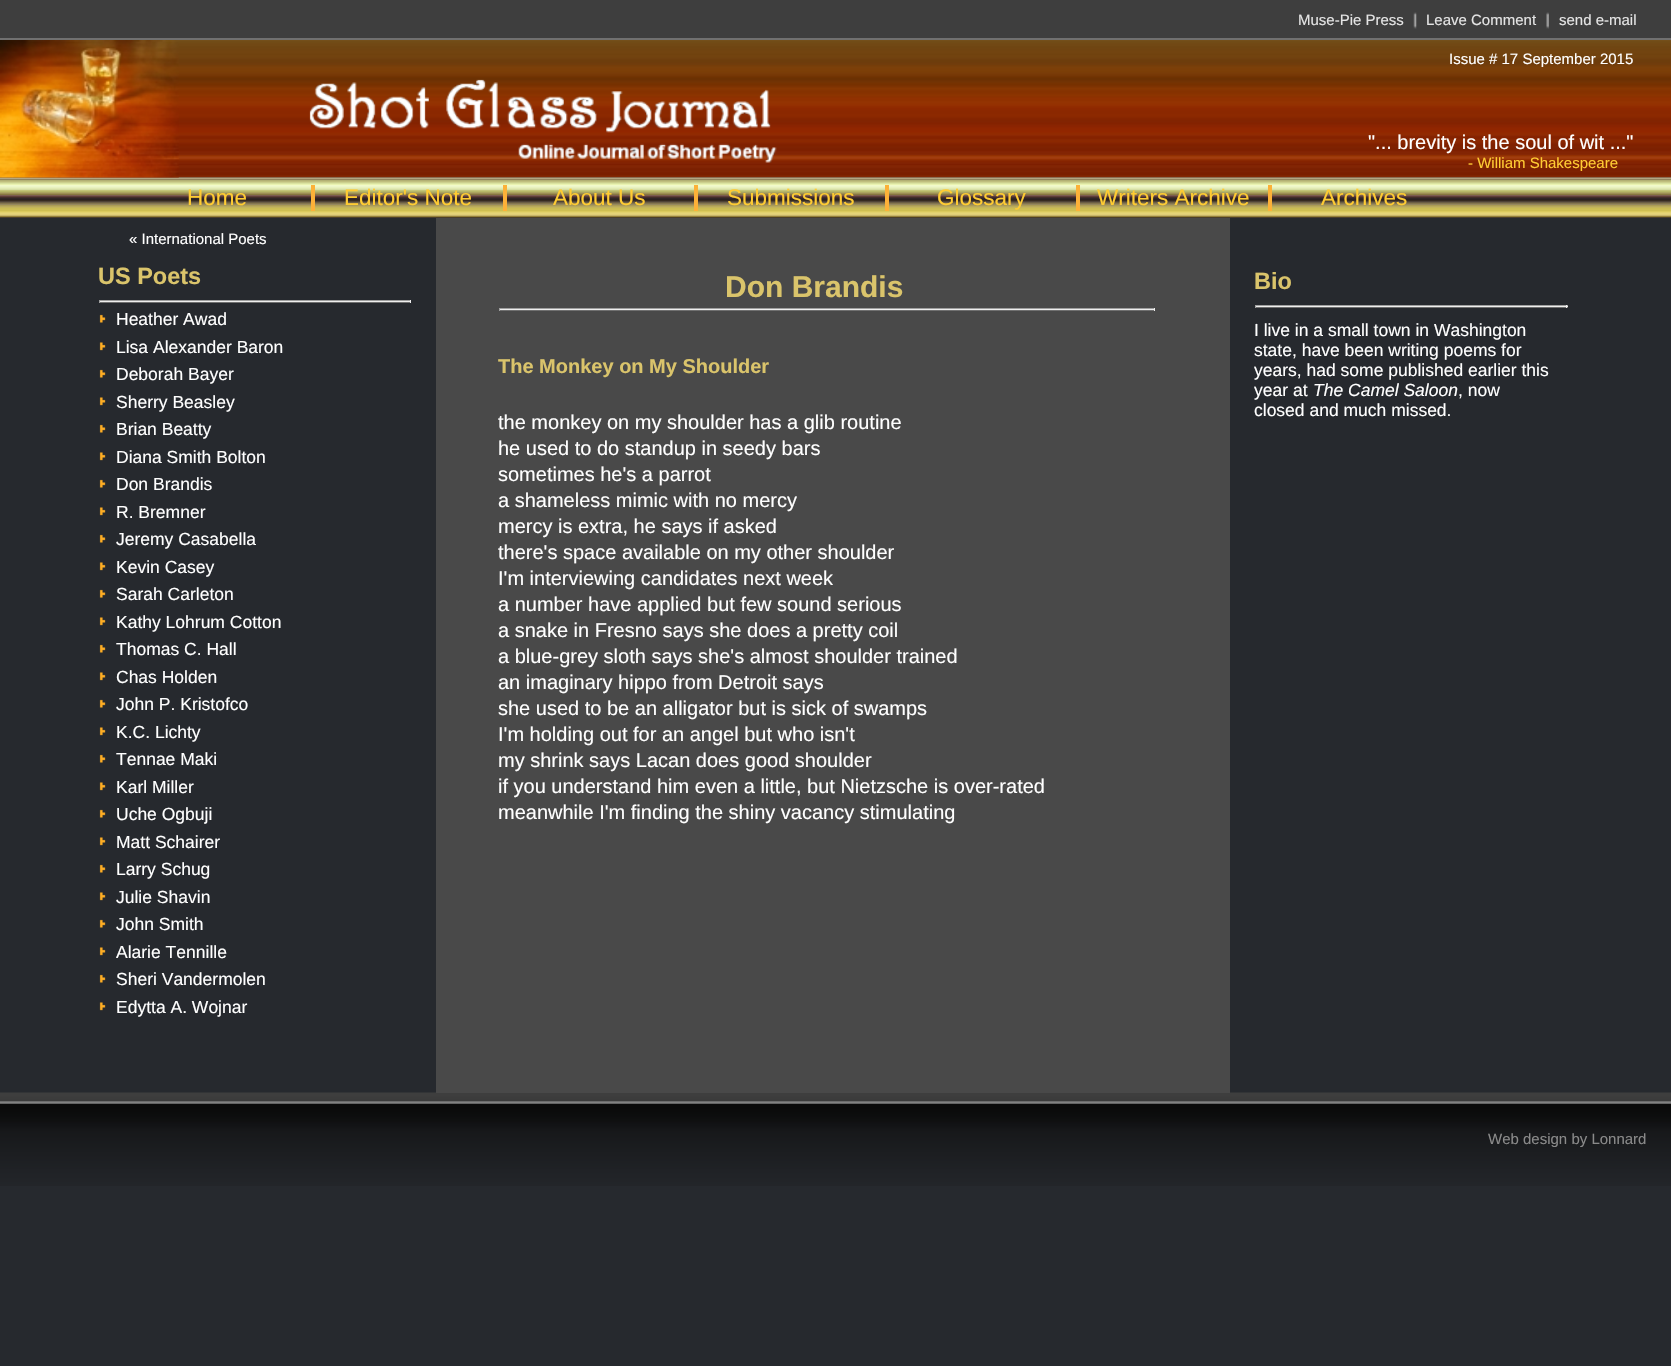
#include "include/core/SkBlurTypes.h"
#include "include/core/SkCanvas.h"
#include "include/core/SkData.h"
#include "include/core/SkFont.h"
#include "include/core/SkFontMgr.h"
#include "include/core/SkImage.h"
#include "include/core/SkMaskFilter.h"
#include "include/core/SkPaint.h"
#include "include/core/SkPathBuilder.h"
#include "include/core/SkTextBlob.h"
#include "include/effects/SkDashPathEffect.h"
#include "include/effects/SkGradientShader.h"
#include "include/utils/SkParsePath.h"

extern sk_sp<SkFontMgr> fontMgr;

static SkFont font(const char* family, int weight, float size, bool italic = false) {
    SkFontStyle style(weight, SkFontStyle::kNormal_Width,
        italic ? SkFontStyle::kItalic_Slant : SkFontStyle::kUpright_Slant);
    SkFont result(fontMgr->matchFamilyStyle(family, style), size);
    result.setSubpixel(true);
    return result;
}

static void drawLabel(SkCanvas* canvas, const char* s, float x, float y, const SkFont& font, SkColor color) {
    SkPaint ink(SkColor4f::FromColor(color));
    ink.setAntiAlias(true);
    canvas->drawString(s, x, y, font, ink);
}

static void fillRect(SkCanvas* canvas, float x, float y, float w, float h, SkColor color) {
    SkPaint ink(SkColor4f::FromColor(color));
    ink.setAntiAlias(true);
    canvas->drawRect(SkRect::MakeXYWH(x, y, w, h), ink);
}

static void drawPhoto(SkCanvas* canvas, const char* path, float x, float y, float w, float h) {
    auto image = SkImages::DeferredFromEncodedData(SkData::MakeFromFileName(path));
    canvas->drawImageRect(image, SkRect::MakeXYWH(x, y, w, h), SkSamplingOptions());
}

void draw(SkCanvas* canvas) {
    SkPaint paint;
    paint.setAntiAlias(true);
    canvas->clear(0xFF26292E);
    fillRect(canvas, 0, 0, 1671, 38, 0xFF3E3E3E);
    fillRect(canvas, 0, 38, 1671, 2, 0xFF707070);
    SkFont font1 = font("Liberation Sans", 400, 15);
    drawLabel(canvas, "Muse-Pie Press", 1298, 25, font1, 0xFFE4E4E4);
    drawPhoto(canvas, "assets/img1.png", 1413, 12, 4, 17);
    drawLabel(canvas, "Leave Comment", 1426, 25, font1, 0xFFE4E4E4);
    drawPhoto(canvas, "assets/img2.png", 1546, 12, 3, 17);
    drawLabel(canvas, "send e-mail", 1559, 25, font1, 0xFFE4E4E4);
    drawPhoto(canvas, "assets/img3.png", 0, 40, 1671, 138);
    drawPhoto(canvas, "assets/img6.png", 0, 177, 1671, 41);
    drawPhoto(canvas, "assets/img4.png", 0, 40, 179, 138);
    drawLabel(canvas, "Issue # 17 September 2015", 1449, 64, font1, 0xFFFFFFFF);
    drawPhoto(canvas, "assets/img5.png", 309, 79, 468, 84);
    SkFont font2 = font("Liberation Sans", 400, 20);
    drawLabel(canvas, "\"... brevity is the soul of wit ...\"", 1368, 149, font2, 0xFFFFFFFF);
    drawLabel(canvas, "- William Shakespeare", 1468, 168, font1, 0xFFFFCC33);
    fillRect(canvas, 311, 185, 4, 26, 0xFFFCB138);
    SkFont font3 = font("Liberation Sans", 400, 22.5f);
    drawLabel(canvas, "Home", 187, 205, font3, 0xFFFFCC33);
    fillRect(canvas, 503, 185, 4, 26, 0xFFFCB138);
    drawLabel(canvas, "Editor's Note", 344, 205, font3, 0xFFFFCC33);
    fillRect(canvas, 694, 185, 4, 26, 0xFFFCB138);
    drawLabel(canvas, "About Us", 553, 205, font3, 0xFFFFCC33);
    fillRect(canvas, 885, 185, 4, 26, 0xFFFCB138);
    drawLabel(canvas, "Submissions", 727, 205, font3, 0xFFFFCC33);
    fillRect(canvas, 1076, 185, 4, 26, 0xFFFCB138);
    drawLabel(canvas, "Glossary", 937, 205, font3, 0xFFFFCC33);
    fillRect(canvas, 1268, 185, 4, 26, 0xFFFCB138);
    drawLabel(canvas, "Writers Archive", 1097, 205, font3, 0xFFFFCC33);
    drawLabel(canvas, "Archives", 1321, 205, font3, 0xFFFFCC33);
    drawLabel(canvas, "« International Poets", 129, 244, font1, 0xFFFFFFFF);
    SkFont font4 = font("Liberation Sans", 700, 23.5f);
    drawLabel(canvas, "US Poets", 98, 284, font4, 0xFFDAC46B);
    fillRect(canvas, 99, 302, 312, 1, 0xFF707070);
    fillRect(canvas, 99, 300, 312, 1, 0xFF9F9F9F);
    fillRect(canvas, 410, 300, 1, 3, 0xFFEEEEEE);
    fillRect(canvas, 99, 301, 312, 1, 0xFFEEEEEE);
    fillRect(canvas, 99, 300, 1, 3, 0xFF9F9F9F);
    drawPhoto(canvas, "assets/img7.png", 99, 314, 7, 9);
    SkFont font5 = font("Liberation Sans", 400, 17.5f);
    drawLabel(canvas, "Heather Awad", 116, 325, font5, 0xFFFFFFFF);
    drawPhoto(canvas, "assets/img8.png", 99, 342, 7, 9);
    drawLabel(canvas, "Lisa Alexander Baron", 116, 353, font5, 0xFFFFFFFF);
    drawPhoto(canvas, "assets/img7.png", 99, 369, 7, 9);
    drawLabel(canvas, "Deborah Bayer", 116, 380, font5, 0xFFFFFFFF);
    drawPhoto(canvas, "assets/img8.png", 99, 397, 7, 9);
    drawLabel(canvas, "Sherry Beasley", 116, 408, font5, 0xFFFFFFFF);
    drawPhoto(canvas, "assets/img7.png", 99, 424, 7, 9);
    drawLabel(canvas, "Brian Beatty", 116, 435, font5, 0xFFFFFFFF);
    drawPhoto(canvas, "assets/img8.png", 99, 452, 7, 9);
    drawLabel(canvas, "Diana Smith Bolton", 116, 463, font5, 0xFFFFFFFF);
    drawPhoto(canvas, "assets/img7.png", 99, 479, 7, 9);
    drawLabel(canvas, "Don Brandis", 116, 490, font5, 0xFFFFFFFF);
    drawPhoto(canvas, "assets/img8.png", 99, 507, 7, 9);
    drawLabel(canvas, "R. Bremner", 116, 518, font5, 0xFFFFFFFF);
    drawPhoto(canvas, "assets/img7.png", 99, 534, 7, 9);
    drawLabel(canvas, "Jeremy Casabella", 116, 545, font5, 0xFFFFFFFF);
    drawPhoto(canvas, "assets/img8.png", 99, 562, 7, 9);
    drawLabel(canvas, "Kevin Casey", 116, 573, font5, 0xFFFFFFFF);
    drawPhoto(canvas, "assets/img9.png", 99, 589, 7, 9);
    drawLabel(canvas, "Sarah Carleton", 116, 600, font5, 0xFFFFFFFF);
    drawPhoto(canvas, "assets/img8.png", 99, 617, 7, 9);
    drawLabel(canvas, "Kathy Lohrum Cotton", 116, 628, font5, 0xFFFFFFFF);
    drawPhoto(canvas, "assets/img7.png", 99, 644, 7, 9);
    drawLabel(canvas, "Thomas C. Hall", 116, 655, font5, 0xFFFFFFFF);
    drawPhoto(canvas, "assets/img8.png", 99, 672, 7, 9);
    drawLabel(canvas, "Chas Holden", 116, 683, font5, 0xFFFFFFFF);
    drawPhoto(canvas, "assets/img7.png", 99, 699, 7, 9);
    drawLabel(canvas, "John P. Kristofco", 116, 710, font5, 0xFFFFFFFF);
    drawPhoto(canvas, "assets/img8.png", 99, 727, 7, 9);
    drawLabel(canvas, "K.C. Lichty", 116, 738, font5, 0xFFFFFFFF);
    drawPhoto(canvas, "assets/img7.png", 99, 754, 7, 9);
    drawLabel(canvas, "Tennae Maki", 116, 765, font5, 0xFFFFFFFF);
    drawPhoto(canvas, "assets/img8.png", 99, 782, 7, 9);
    drawLabel(canvas, "Karl Miller", 116, 793, font5, 0xFFFFFFFF);
    drawPhoto(canvas, "assets/img7.png", 99, 809, 7, 9);
    drawLabel(canvas, "Uche Ogbuji", 116, 820, font5, 0xFFFFFFFF);
    drawPhoto(canvas, "assets/img8.png", 99, 837, 7, 9);
    drawLabel(canvas, "Matt Schairer", 116, 848, font5, 0xFFFFFFFF);
    drawPhoto(canvas, "assets/img7.png", 99, 864, 7, 9);
    drawLabel(canvas, "Larry Schug", 116, 875, font5, 0xFFFFFFFF);
    drawPhoto(canvas, "assets/img8.png", 99, 892, 7, 9);
    drawLabel(canvas, "Julie Shavin", 116, 903, font5, 0xFFFFFFFF);
    drawPhoto(canvas, "assets/img7.png", 99, 919, 7, 9);
    drawLabel(canvas, "John Smith", 116, 930, font5, 0xFFFFFFFF);
    drawPhoto(canvas, "assets/img8.png", 99, 947, 7, 9);
    drawLabel(canvas, "Alarie Tennille", 116, 958, font5, 0xFFFFFFFF);
    drawPhoto(canvas, "assets/img7.png", 99, 974, 7, 9);
    drawLabel(canvas, "Sheri Vandermolen", 116, 985, font5, 0xFFFFFFFF);
    drawPhoto(canvas, "assets/img8.png", 99, 1002, 7, 9);
    drawLabel(canvas, "Edytta A. Wojnar", 116, 1013, font5, 0xFFFFFFFF);
    drawPhoto(canvas, "assets/img10.png", 0, 1092, 1671, 94);
    fillRect(canvas, 436, 218, 794, 875, 0xFF494949);
    SkFont font6 = font("Liberation Sans", 700, 30);
    drawLabel(canvas, "Don Brandis", 725, 297, font6, 0xFFDAC46B);
    fillRect(canvas, 499, 310, 656, 1, 0xFF707070);
    fillRect(canvas, 499, 308, 656, 1, 0xFF9F9F9F);
    fillRect(canvas, 1154, 308, 1, 3, 0xFFEEEEEE);
    fillRect(canvas, 499, 309, 656, 1, 0xFFEEEEEE);
    fillRect(canvas, 499, 308, 1, 3, 0xFF9F9F9F);
    SkFont font7 = font("Liberation Sans", 700, 20);
    drawLabel(canvas, "The Monkey on My Shoulder", 498, 373, font7, 0xFFDAC46B);
    drawLabel(canvas, "the monkey on my shoulder has a glib routine", 498, 429, font2, 0xFFFFFFFF);
    drawLabel(canvas, "he used to do standup in seedy bars", 498, 455, font2, 0xFFFFFFFF);
    drawLabel(canvas, "sometimes he's a parrot", 498, 481, font2, 0xFFFFFFFF);
    drawLabel(canvas, "a shameless mimic with no mercy", 498, 507, font2, 0xFFFFFFFF);
    drawLabel(canvas, "mercy is extra, he says if asked", 498, 533, font2, 0xFFFFFFFF);
    drawLabel(canvas, "there's space available on my other shoulder", 498, 559, font2, 0xFFFFFFFF);
    drawLabel(canvas, "I'm interviewing candidates next week", 498, 585, font2, 0xFFFFFFFF);
    drawLabel(canvas, "a number have applied but few sound serious", 498, 611, font2, 0xFFFFFFFF);
    drawLabel(canvas, "a snake in Fresno says she does a pretty coil", 498, 637, font2, 0xFFFFFFFF);
    drawLabel(canvas, "a blue-grey sloth says she's almost shoulder trained", 498, 663, font2, 0xFFFFFFFF);
    drawLabel(canvas, "an imaginary hippo from Detroit says", 498, 689, font2, 0xFFFFFFFF);
    drawLabel(canvas, "she used to be an alligator but is sick of swamps", 498, 715, font2, 0xFFFFFFFF);
    drawLabel(canvas, "I'm holding out for an angel but who isn't", 498, 741, font2, 0xFFFFFFFF);
    drawLabel(canvas, "my shrink says Lacan does good shoulder", 498, 767, font2, 0xFFFFFFFF);
    drawLabel(canvas, "if you understand him even a little, but Nietzsche is over-rated", 498, 793, font2, 0xFFFFFFFF);
    drawLabel(canvas, "meanwhile I'm finding the shiny vacancy stimulating", 498, 819, font2, 0xFFFFFFFF);
    drawLabel(canvas, "Bio", 1254, 289, font4, 0xFFDAC46B);
    fillRect(canvas, 1255, 307, 313, 1, 0xFF707070);
    fillRect(canvas, 1255, 305, 313, 1, 0xFF9F9F9F);
    fillRect(canvas, 1566, 305, 1, 3, 0xFFEEEEEE);
    fillRect(canvas, 1255, 306, 313, 1, 0xFFEEEEEE);
    fillRect(canvas, 1255, 305, 1, 3, 0xFF9F9F9F);
    drawLabel(canvas, "I live in a small town in Washington", 1254, 336, font5, 0xFFFFFFFF);
    drawLabel(canvas, "state, have been writing poems for", 1254, 356, font5, 0xFFFFFFFF);
    drawLabel(canvas, "years, had some published earlier this", 1254, 376, font5, 0xFFFFFFFF);
    drawLabel(canvas, "year at", 1254, 396, font5, 0xFFFFFFFF);
    SkFont font8 = font("Liberation Sans", 400, 17.5f, true);
    drawLabel(canvas, "The Camel Saloon", 1313, 396, font8, 0xFFFFFFFF);
    drawLabel(canvas, ", now", 1458, 396, font5, 0xFFFFFFFF);
    drawLabel(canvas, "closed and much missed.", 1254, 416, font5, 0xFFFFFFFF);
    drawLabel(canvas, "Web design by Lonnard", 1488, 1144, font1, 0xFF8A8A8A);
}
